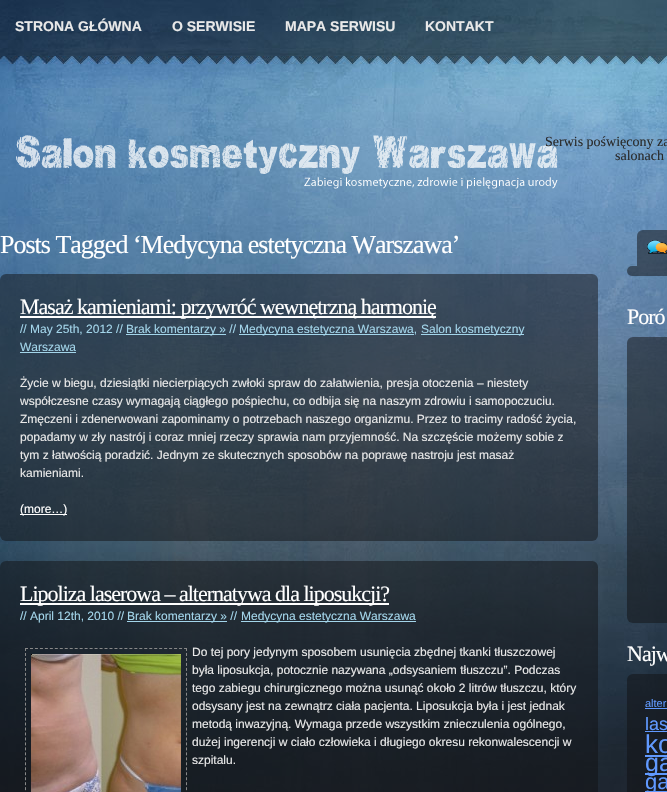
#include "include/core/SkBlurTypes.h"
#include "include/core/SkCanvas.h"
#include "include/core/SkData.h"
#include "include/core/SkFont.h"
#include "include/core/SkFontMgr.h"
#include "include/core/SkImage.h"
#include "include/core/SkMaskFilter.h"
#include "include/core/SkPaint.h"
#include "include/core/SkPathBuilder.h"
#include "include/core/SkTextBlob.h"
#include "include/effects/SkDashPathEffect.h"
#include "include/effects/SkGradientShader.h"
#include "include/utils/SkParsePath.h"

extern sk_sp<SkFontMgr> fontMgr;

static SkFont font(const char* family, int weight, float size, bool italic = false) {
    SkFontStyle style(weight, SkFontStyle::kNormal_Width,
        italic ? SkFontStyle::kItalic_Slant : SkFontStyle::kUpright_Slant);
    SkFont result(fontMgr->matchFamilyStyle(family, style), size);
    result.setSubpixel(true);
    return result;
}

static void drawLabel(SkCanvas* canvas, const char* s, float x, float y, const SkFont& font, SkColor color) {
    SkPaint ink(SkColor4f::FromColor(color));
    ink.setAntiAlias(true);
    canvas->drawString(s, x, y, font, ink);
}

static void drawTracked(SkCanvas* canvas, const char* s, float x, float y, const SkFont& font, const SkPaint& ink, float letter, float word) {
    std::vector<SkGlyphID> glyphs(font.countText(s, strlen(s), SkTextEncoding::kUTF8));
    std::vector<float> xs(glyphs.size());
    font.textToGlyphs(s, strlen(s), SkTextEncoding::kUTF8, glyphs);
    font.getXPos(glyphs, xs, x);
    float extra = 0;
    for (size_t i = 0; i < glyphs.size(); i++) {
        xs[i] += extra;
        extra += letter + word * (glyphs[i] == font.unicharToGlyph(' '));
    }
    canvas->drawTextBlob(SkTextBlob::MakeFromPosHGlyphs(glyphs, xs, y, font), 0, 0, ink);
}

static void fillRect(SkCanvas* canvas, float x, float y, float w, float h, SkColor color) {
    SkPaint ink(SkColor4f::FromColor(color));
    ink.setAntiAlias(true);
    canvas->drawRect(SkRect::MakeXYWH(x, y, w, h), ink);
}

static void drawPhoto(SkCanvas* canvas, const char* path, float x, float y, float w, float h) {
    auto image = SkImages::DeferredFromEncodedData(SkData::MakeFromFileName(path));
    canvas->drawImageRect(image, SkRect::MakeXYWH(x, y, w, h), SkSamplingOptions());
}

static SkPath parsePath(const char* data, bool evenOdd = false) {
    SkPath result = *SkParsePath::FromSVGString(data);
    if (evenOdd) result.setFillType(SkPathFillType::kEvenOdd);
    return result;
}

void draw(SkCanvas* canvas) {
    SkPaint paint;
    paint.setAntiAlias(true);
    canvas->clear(0xFFFFFFFF);
    drawPhoto(canvas, "assets/img1.png", 0, 0, 667, 792);
    SkFont font1 = font("Liberation Sans", 700, 14);
    drawLabel(canvas, "STRONA GŁÓWNA", 15, 31, font1, 0xFFE9E9E9);
    drawLabel(canvas, "O SERWISIE", 172, 31, font1, 0xFFE9E9E9);
    drawLabel(canvas, "MAPA SERWISU", 285, 31, font1, 0xFFE9E9E9);
    drawLabel(canvas, "KONTAKT", 425, 31, font1, 0xFFE9E9E9);
    drawPhoto(canvas, "assets/img2.png", 16, 135, 542, 54);
    SkFont font2 = font("Liberation Serif", 400, 14);
    drawLabel(canvas, "Serwis poświęcony za", 545, 146, font2, 0xFF2A2B2B);
    drawLabel(canvas, "salonach", 615, 160, font2, 0xFF2A2B2B);
    SkFont font3 = font("Liberation Serif", 400, 26);
    paint.setColor(0xFFFFFFFF);
    drawTracked(canvas, "Posts Tagged ‘Medycyna estetyczna Warszawa’", 0, 253, font3, paint, -1, 0);
    drawPhoto(canvas, "assets/img3.png", 0, 274, 598, 267);
    fillRect(canvas, 20, 316, 416, 2, 0xFFFFFFFF);
    SkFont font4 = font("Liberation Serif", 400, 22);
    drawTracked(canvas, "Masaż kamieniami: przywróć wewnętrzną harmonię", 20, 314, font4, paint, -1, 0);
    SkFont font5 = font("Liberation Sans", 400, 12);
    drawLabel(canvas, "// May 25th, 2012 //", 20, 333, font5, 0xFFA3D5EA);
    fillRect(canvas, 126, 334, 100, 1, 0xFFA3D5EA);
    drawLabel(canvas, "Brak komentarzy » //", 126, 333, font5, 0xFFA3D5EA);
    fillRect(canvas, 239, 334, 175, 1, 0xFFA3D5EA);
    drawLabel(canvas, "Medycyna estetyczna Warszawa,", 239, 333, font5, 0xFFA3D5EA);
    fillRect(canvas, 421, 334, 103, 1, 0xFFA3D5EA);
    drawLabel(canvas, "Salon kosmetyczny", 421, 333, font5, 0xFFA3D5EA);
    drawLabel(canvas, "Warszawa", 20, 351, font5, 0xFFA3D5EA);
    fillRect(canvas, 20, 352, 56, 1, 0xFFA3D5EA);
    drawLabel(canvas, "Życie w biegu, dziesiątki niecierpiących zwłoki spraw do załatwienia, presja otoczenia – niestety", 20, 387, font5, 0xFFE9E9E9);
    drawLabel(canvas, "współczesne czasy wymagają ciągłego pośpiechu, co odbija się na naszym zdrowiu i samopoczuciu.", 20, 405, font5, 0xFFE9E9E9);
    drawLabel(canvas, "Zmęczeni i zdenerwowani zapominamy o potrzebach naszego organizmu. Przez to tracimy radość życia,", 20, 423, font5, 0xFFE9E9E9);
    drawLabel(canvas, "popadamy w zły nastrój i coraz mniej rzeczy sprawia nam przyjemność. Na szczęście możemy sobie z", 20, 441, font5, 0xFFE9E9E9);
    drawLabel(canvas, "tym z łatwością poradzić. Jednym ze skutecznych sposobów na poprawę nastroju jest masaż", 20, 459, font5, 0xFFE9E9E9);
    drawLabel(canvas, "kamieniami.", 20, 477, font5, 0xFFE9E9E9);
    fillRect(canvas, 20, 514, 47, 1, 0xFFFFFFFF);
    drawLabel(canvas, "(more…)", 20, 513, font5, 0xFFFFFFFF);
    drawPhoto(canvas, "assets/img4.png", 0, 561, 598, 231);
    fillRect(canvas, 20, 603, 369, 2, 0xFFFFFFFF);
    drawTracked(canvas, "Lipoliza laserowa – alternatywa dla liposukcji?", 20, 601, font4, paint, -1, 0);
    drawLabel(canvas, "// April 12th, 2010 //", 20, 620, font5, 0xFFA3D5EA);
    fillRect(canvas, 127, 621, 100, 1, 0xFFA3D5EA);
    drawLabel(canvas, "Brak komentarzy » //", 127, 620, font5, 0xFFA3D5EA);
    fillRect(canvas, 241, 621, 175, 1, 0xFFA3D5EA);
    drawLabel(canvas, "Medycyna estetyczna Warszawa", 241, 620, font5, 0xFFA3D5EA);
    paint.setStroke(true);
    paint.setStrokeWidth(1);
    paint.setColor(0xFF888888);
    paint.setPathEffect(SkDashPathEffect::Make({{3, 1.97f}}, 0));
    canvas->drawPath(parsePath("M25 648.5H187"), paint);
    paint.setPathEffect(nullptr);
    paint.setPathEffect(SkDashPathEffect::Make({{3, 1.97f}}, 0));
    canvas->drawPath(parsePath("M186.5 648V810"), paint);
    paint.setPathEffect(nullptr);
    paint.setPathEffect(SkDashPathEffect::Make({{3, 1.97f}}, 0));
    canvas->drawPath(parsePath("M25.5 648V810"), paint);
    paint.setPathEffect(nullptr);
    drawPhoto(canvas, "assets/img5.png", 31, 654, 150, 138);
    drawLabel(canvas, "Do tej pory jedynym sposobem usunięcia zbędnej tkanki tłuszczowej", 192, 656, font5, 0xFFE9E9E9);
    drawLabel(canvas, "była liposukcja, potocznie nazywana „odsysaniem tłuszczu”. Podczas", 192, 674, font5, 0xFFE9E9E9);
    drawLabel(canvas, "tego zabiegu chirurgicznego można usunąć około 2 litrów tłuszczu, który", 192, 692, font5, 0xFFE9E9E9);
    drawLabel(canvas, "odsysany jest na zewnątrz ciała pacjenta. Liposukcja była i jest jednak", 192, 710, font5, 0xFFE9E9E9);
    drawLabel(canvas, "metodą inwazyjną. Wymaga przede wszystkim znieczulenia ogólnego,", 192, 728, font5, 0xFFE9E9E9);
    drawLabel(canvas, "dużej ingerencji w ciało człowieka i długiego okresu rekonwalescencji w", 192, 746, font5, 0xFFE9E9E9);
    drawLabel(canvas, "szpitalu.", 192, 764, font5, 0xFFE9E9E9);
    drawPhoto(canvas, "assets/img6.png", 637, 230, 30, 36);
    drawPhoto(canvas, "assets/img7.png", 647, 240, 20, 14);
    drawPhoto(canvas, "assets/img8.png", 627, 266, 40, 10);
    paint.setStroke(false);
    paint.setColor(0xFFFFFFFF);
    drawTracked(canvas, "Poró", 627, 324, font4, paint, -1, 0);
    drawPhoto(canvas, "assets/img9.png", 627, 337, 40, 286);
    drawTracked(canvas, "Najw", 627, 661, font4, paint, -1, 0);
    drawPhoto(canvas, "assets/img10.png", 627, 674, 40, 118);
    SkFont font6 = font("Liberation Sans", 400, 11);
    drawLabel(canvas, "alter", 645, 707, font6, 0xFF6099FF);
    fillRect(canvas, 645, 708, 22, 1, 0xFF6099FF);
    SkFont font7 = font("Liberation Sans", 400, 18);
    drawLabel(canvas, "las", 645, 730, font7, 0xFF6099FF);
    fillRect(canvas, 645, 731, 22, 1, 0xFF6099FF);
    SkFont font8 = font("Liberation Sans", 400, 26);
    drawLabel(canvas, "ko", 645, 753, font8, 0xFF6099FF);
    fillRect(canvas, 645, 755, 22, 2, 0xFF6099FF);
    fillRect(canvas, 645, 773, 22, 2, 0xFF6099FF);
    SkFont font9 = font("Liberation Sans", 400, 25);
    drawLabel(canvas, "ga", 645, 771, font9, 0xFF6099FF);
    fillRect(canvas, 645, 791, 22, 1, 0xFF6099FF);
    SkFont font10 = font("Liberation Sans", 400, 22);
    drawLabel(canvas, "ga", 645, 789, font10, 0xFF6099FF);
}
